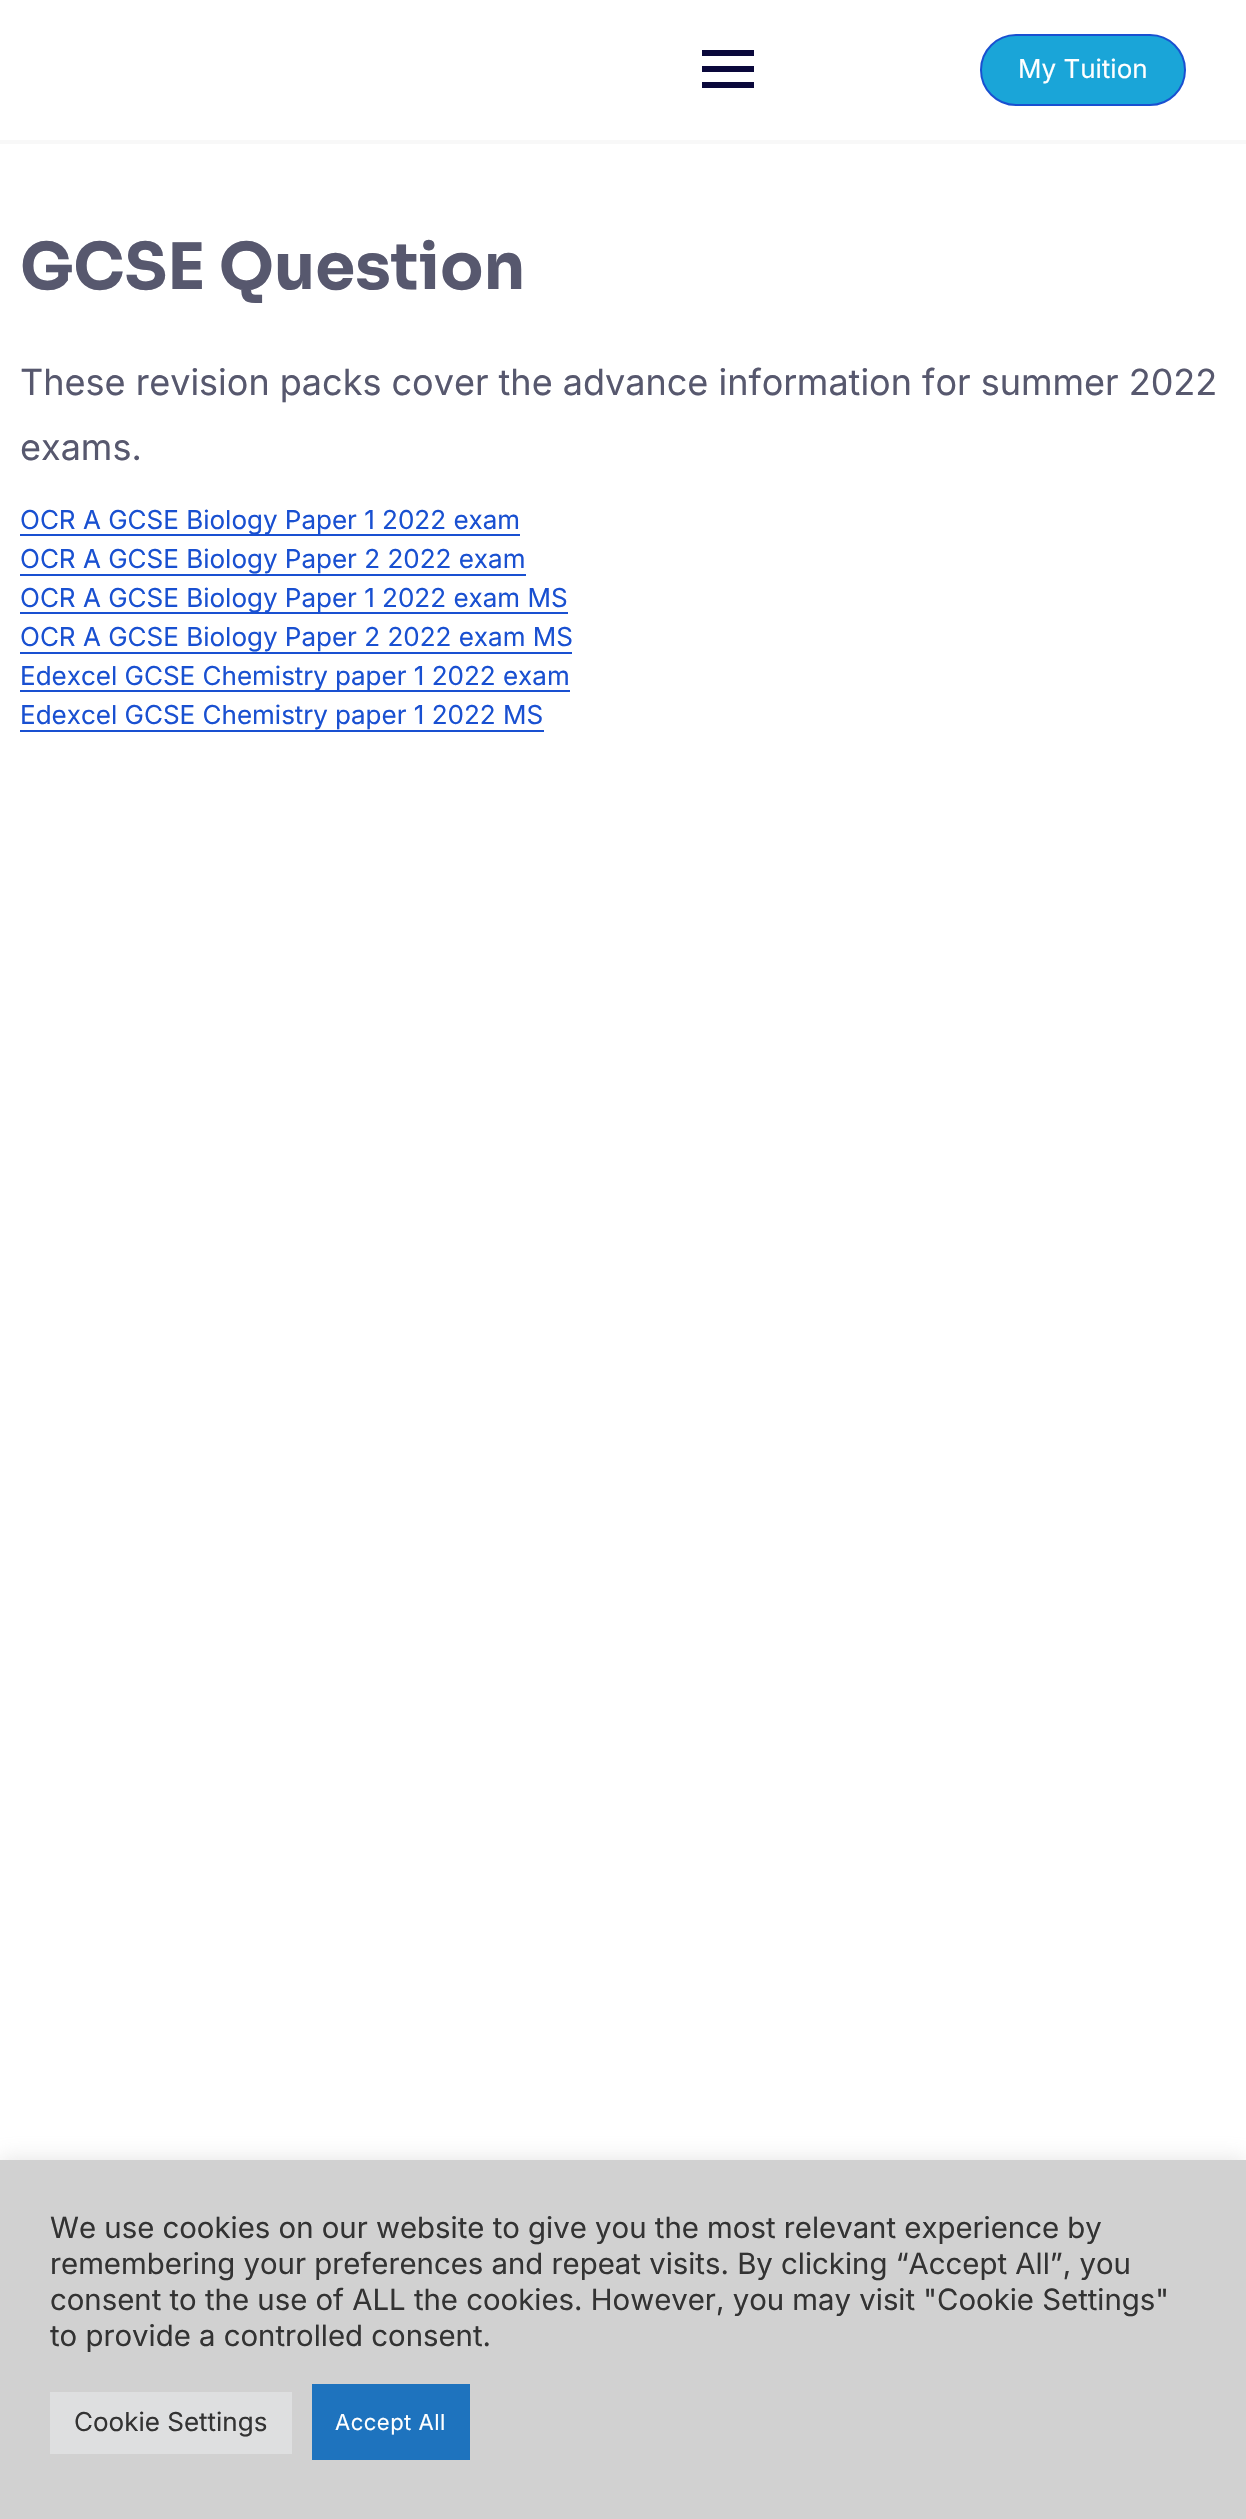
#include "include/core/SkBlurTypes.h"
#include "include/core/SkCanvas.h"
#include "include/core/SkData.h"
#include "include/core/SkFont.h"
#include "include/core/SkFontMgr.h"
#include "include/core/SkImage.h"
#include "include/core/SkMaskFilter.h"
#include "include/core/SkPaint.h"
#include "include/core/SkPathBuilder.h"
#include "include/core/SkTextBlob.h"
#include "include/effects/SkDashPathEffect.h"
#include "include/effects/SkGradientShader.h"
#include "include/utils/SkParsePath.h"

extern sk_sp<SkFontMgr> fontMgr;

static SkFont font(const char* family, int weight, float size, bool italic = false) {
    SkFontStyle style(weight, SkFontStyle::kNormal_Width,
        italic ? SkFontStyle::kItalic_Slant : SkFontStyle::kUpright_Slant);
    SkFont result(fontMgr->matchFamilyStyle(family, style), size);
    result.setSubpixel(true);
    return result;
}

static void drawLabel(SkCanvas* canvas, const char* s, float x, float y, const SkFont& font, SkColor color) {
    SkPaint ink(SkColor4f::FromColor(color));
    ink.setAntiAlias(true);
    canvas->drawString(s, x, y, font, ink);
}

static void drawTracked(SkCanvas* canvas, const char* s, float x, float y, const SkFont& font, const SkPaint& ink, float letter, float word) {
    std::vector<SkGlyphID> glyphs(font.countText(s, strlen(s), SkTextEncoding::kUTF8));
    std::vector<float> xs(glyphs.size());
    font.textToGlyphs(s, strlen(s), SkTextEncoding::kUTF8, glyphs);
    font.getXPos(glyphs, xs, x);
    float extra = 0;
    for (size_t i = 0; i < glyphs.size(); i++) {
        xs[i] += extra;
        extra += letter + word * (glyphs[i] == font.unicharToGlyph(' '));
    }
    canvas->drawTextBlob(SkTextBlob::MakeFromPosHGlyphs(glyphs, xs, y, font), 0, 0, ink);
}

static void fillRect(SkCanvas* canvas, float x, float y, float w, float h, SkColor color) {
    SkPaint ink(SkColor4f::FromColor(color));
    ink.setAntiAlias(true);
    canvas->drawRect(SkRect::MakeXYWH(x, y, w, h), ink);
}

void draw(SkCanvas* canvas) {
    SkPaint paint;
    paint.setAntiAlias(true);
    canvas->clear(0xFFFFFFFF);
    fillRect(canvas, 0, 140, 1246, 4, 0xFFF8F8F8);
    fillRect(canvas, 702, 66, 52, 6, 0xFF0A083B);
    fillRect(canvas, 702, 50, 52, 6, 0xFF0A083B);
    fillRect(canvas, 702, 82, 52, 6, 0xFF0A083B);
    paint.setColor(0xFF1AA5D8);
    canvas->drawRoundRect(SkRect::MakeXYWH(981, 35, 204, 70), 35, 35, paint);
    paint.setStroke(true);
    paint.setStrokeWidth(2);
    paint.setColor(0xFF1950D1);
    canvas->drawRoundRect(SkRect::MakeXYWH(981, 35, 204, 70), 35, 35, paint);
    SkFont font1 = font("Inter", 400, 26);
    drawLabel(canvas, "My Tuition", 1018, 78, font1, 0xFFFFFFFF);
    SkFont font2 = font("Sora", 700, 64);
    drawLabel(canvas, "GCSE Question", 20, 289, font2, 0xFF57586E);
    SkFont font3 = font("Inter", 400, 36);
    drawLabel(canvas, "These revision packs cover the advance information for summer 2022", 20, 395, font3, 0xFF57586E);
    drawLabel(canvas, "exams.", 20, 460, font3, 0xFF57586E);
    fillRect(canvas, 20, 534, 500, 2, 0xFF1950D1);
    drawLabel(canvas, "OCR A GCSE Biology Paper 1 2022 exam", 20, 529, font1, 0xFF1950D1);
    drawLabel(canvas, "OCR A GCSE Biology Paper 2 2022 exam", 20, 568, font1, 0xFF1950D1);
    fillRect(canvas, 20, 574, 506, 2, 0xFF1950D1);
    fillRect(canvas, 20, 612, 548, 2, 0xFF1950D1);
    drawLabel(canvas, "OCR A GCSE Biology Paper 1 2022 exam MS", 20, 607, font1, 0xFF1950D1);
    drawLabel(canvas, "OCR A GCSE Biology Paper 2 2022 exam MS", 20, 646, font1, 0xFF1950D1);
    fillRect(canvas, 20, 652, 552, 2, 0xFF1950D1);
    fillRect(canvas, 20, 690, 550, 2, 0xFF1950D1);
    drawLabel(canvas, "Edexcel GCSE Chemistry paper 1 2022 exam", 20, 685, font1, 0xFF1950D1);
    drawLabel(canvas, "Edexcel GCSE Chemistry paper 1 2022 MS", 20, 724, font1, 0xFF1950D1);
    fillRect(canvas, 20, 730, 524, 2, 0xFF1950D1);
    paint.setStroke(false);
    paint.setColor(0x4DACABAB);
    paint.setMaskFilter(SkMaskFilter::MakeBlur(kNormal_SkBlurStyle, 10));
    canvas->drawRect(SkRect::MakeXYWH(0, 2158, 1246, 360), paint);
    paint.setMaskFilter(nullptr);
    fillRect(canvas, 0, 2160, 1246, 359, 0xFFD1D1D1);
    SkFont font4 = font("Inter", 400, 29.35f);
    drawLabel(canvas, "We use cookies on our website to give you the most relevant experience by", 50, 2238, font4, 0xFF333333);
    drawLabel(canvas, "remembering your preferences and repeat visits. By clicking “Accept All”, you", 50, 2274, font4, 0xFF333333);
    drawLabel(canvas, "consent to the use of ALL the cookies. However, you may visit \"Cookie Settings\"", 50, 2310, font4, 0xFF333333);
    drawLabel(canvas, "to provide a controlled consent.", 50, 2346, font4, 0xFF333333);
    fillRect(canvas, 50, 2392, 242, 62, 0xFFDEDFE0);
    drawLabel(canvas, "Cookie Settings", 74, 2431, font1, 0xFF333333);
    fillRect(canvas, 312, 2384, 158, 76, 0xFF1E73BE);
    SkFont font5 = font("Inter", 400, 22);
    paint.setColor(0xFFFFFFFF);
    drawTracked(canvas, "Accept All", 335, 2430, font5, paint, 0.5f, 0);
}
